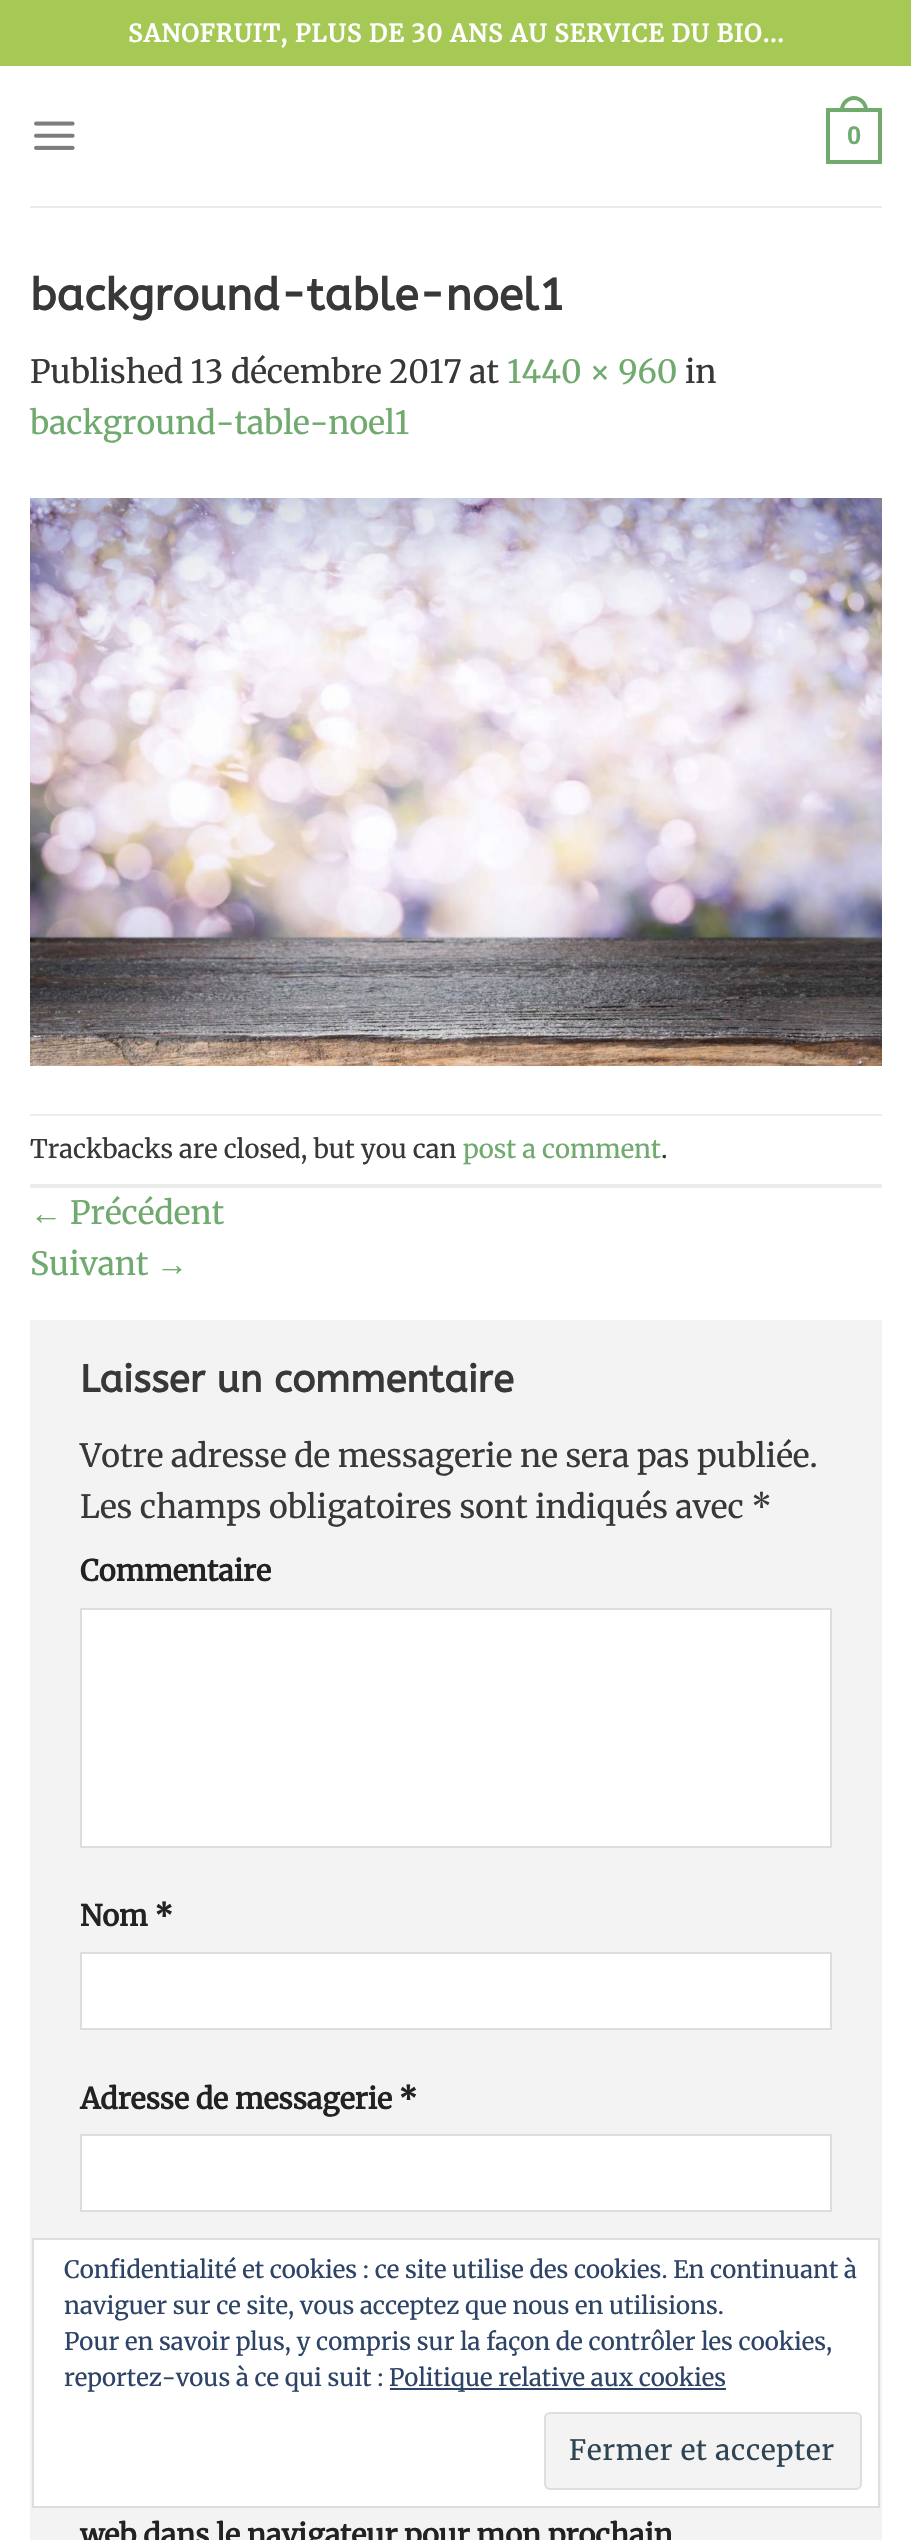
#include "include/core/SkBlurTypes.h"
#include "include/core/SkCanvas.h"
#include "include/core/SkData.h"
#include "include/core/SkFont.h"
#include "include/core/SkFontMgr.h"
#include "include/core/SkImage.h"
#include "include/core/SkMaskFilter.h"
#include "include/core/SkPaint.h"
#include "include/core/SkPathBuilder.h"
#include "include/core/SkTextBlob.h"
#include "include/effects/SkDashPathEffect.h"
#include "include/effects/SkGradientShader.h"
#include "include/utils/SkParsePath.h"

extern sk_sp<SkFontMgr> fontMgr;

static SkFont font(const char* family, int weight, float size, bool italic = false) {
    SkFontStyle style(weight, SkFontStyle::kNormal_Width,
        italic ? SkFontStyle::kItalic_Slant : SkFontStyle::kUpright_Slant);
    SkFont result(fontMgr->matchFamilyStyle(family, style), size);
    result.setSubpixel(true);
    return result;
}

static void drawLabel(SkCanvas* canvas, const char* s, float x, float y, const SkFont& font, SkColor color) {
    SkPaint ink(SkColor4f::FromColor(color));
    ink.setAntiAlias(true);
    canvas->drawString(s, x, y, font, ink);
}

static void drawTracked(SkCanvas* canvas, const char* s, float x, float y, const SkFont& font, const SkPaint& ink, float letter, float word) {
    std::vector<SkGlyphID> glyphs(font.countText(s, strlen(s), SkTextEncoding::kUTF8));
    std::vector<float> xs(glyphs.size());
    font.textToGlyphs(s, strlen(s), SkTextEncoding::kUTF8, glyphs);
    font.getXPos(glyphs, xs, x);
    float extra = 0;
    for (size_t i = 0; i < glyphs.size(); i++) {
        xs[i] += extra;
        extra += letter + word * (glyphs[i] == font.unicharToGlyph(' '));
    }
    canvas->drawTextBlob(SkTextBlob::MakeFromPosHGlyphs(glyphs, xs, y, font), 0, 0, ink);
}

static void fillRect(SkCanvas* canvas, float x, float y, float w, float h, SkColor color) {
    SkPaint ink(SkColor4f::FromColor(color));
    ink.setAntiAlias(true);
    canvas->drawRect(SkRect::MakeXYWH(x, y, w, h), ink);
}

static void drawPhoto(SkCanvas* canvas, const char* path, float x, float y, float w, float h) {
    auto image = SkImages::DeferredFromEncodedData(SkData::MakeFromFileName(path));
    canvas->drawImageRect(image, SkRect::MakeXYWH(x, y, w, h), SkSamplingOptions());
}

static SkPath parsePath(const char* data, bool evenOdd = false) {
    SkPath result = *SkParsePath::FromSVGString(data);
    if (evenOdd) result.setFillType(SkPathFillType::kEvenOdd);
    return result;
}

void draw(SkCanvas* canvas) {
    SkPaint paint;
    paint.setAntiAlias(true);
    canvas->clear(0xFFFFFFFF);
    fillRect(canvas, 0, 0, 911, 66, 0xFFA6C955);
    SkFont font1 = font("Merriweather", 700, 24);
    paint.setColor(0xFFFFFFFF);
    drawTracked(canvas, "SANOFRUIT, PLUS DE 30 ANS AU SERVICE DU BIO...", 128, 42, font1, paint, 1.2f, 0);
    drawPhoto(canvas, "assets/img1.png", 34, 121, 41, 29);
    paint.setStroke(true);
    paint.setStrokeWidth(4);
    paint.setColor(0xFF70AA6F);
    canvas->drawRect(SkRect::MakeXYWH(828, 110, 52, 52), paint);
    paint.setStroke(false);
    canvas->drawPath(parsePath("M854 96C861.5 96 868 102.5 868 110V112H840V110C840 102.5 846.5 96 854 96ZM854 100C859.5 100 864 104.5 864 110V112H844V110C844 104.5 848.5 100 854 100Z", true), paint);
    SkFont font2 = font("Liberation Sans", 700, 25.6f);
    drawLabel(canvas, "0", 847, 144, font2, 0xFF70AA6F);
    fillRect(canvas, 30, 206, 852, 2, 0xFFEBEBEB);
    SkFont font3 = font("ABeeZee", 700, 44.75f);
    drawLabel(canvas, "background-table-noel1", 30, 310, font3, 0xFF383838);
    SkFont font4 = font("Merriweather", 300, 32);
    drawLabel(canvas, "Published 13 décembre 2017 at", 30, 383, font4, 0xFF383838);
    drawLabel(canvas, "1440 × 960", 507, 383, font4, 0xFF70AA6F);
    drawLabel(canvas, "in", 685, 383, font4, 0xFF383838);
    drawLabel(canvas, "background-table-noel1", 30, 434, font4, 0xFF70AA6F);
    drawPhoto(canvas, "assets/img2.png", 30, 498, 852, 568);
    fillRect(canvas, 30, 1114, 852, 2, 0xFFECECEC);
    fillRect(canvas, 30, 1184, 852, 4, 0xFFECECEC);
    SkFont font5 = font("Merriweather", 300, 25.6f);
    drawLabel(canvas, "Trackbacks are closed, but you can", 30, 1158, font5, 0xFF383838);
    drawLabel(canvas, "post a comment", 463, 1158, font5, 0xFF70AA6F);
    drawLabel(canvas, ".", 661, 1158, font5, 0xFF383838);
    SkFont font6 = font("Liberation Sans", 400, 32);
    drawLabel(canvas, "←", 30, 1224, font6, 0xFF70AA6F);
    drawLabel(canvas, "Précédent", 70, 1224, font4, 0xFF70AA6F);
    drawLabel(canvas, "Suivant", 30, 1275, font4, 0xFF70AA6F);
    drawLabel(canvas, "→", 156, 1275, font6, 0xFF70AA6F);
    fillRect(canvas, 30, 1320, 852, 1220, 0xFFF3F3F3);
    SkFont font7 = font("ABeeZee", 700, 38.4f);
    drawLabel(canvas, "Laisser un commentaire", 80, 1392, font7, 0xFF383838);
    drawLabel(canvas, "Votre adresse de messagerie ne sera pas publiée.", 80, 1467, font4, 0xFF383838);
    drawLabel(canvas, "Les champs obligatoires sont indiqués avec *", 80, 1518, font4, 0xFF383838);
    SkFont font8 = font("Merriweather", 700, 28.8f);
    drawLabel(canvas, "Commentaire", 80, 1581, font8, 0xFF222222);
    paint.setColor(0xFFFFFFFF);
    canvas->drawRect(SkRect::MakeXYWH(81, 1609, 750, 238), paint);
    paint.setStroke(true);
    paint.setStrokeWidth(2);
    paint.setColor(0xFFDDDDDD);
    canvas->drawRect(SkRect::MakeXYWH(81, 1609, 750, 238), paint);
    drawLabel(canvas, "Nom *", 80, 1926, font8, 0xFF222222);
    paint.setStroke(false);
    paint.setColor(0xFFFFFFFF);
    canvas->drawRect(SkRect::MakeXYWH(81, 1953, 750, 76), paint);
    paint.setStroke(true);
    paint.setColor(0xFFDDDDDD);
    canvas->drawRect(SkRect::MakeXYWH(81, 1953, 750, 76), paint);
    drawLabel(canvas, "Adresse de messagerie *", 80, 2109, font8, 0xFF222222);
    paint.setStroke(false);
    paint.setColor(0xFFFFFFFF);
    canvas->drawRect(SkRect::MakeXYWH(81, 2135, 750, 76), paint);
    paint.setStroke(true);
    paint.setColor(0xFFDDDDDD);
    canvas->drawRect(SkRect::MakeXYWH(81, 2135, 750, 76), paint);
    drawLabel(canvas, "web dans le navigateur pour mon prochain", 80, 2545, font8, 0xFF222222);
    paint.setStroke(false);
    paint.setColor(0xFFFFFFFF);
    canvas->drawRect(SkRect::MakeXYWH(33, 2239, 846, 268), paint);
    paint.setStroke(true);
    paint.setColor(0xFFDEDEDE);
    canvas->drawRect(SkRect::MakeXYWH(33, 2239, 846, 268), paint);
    SkFont font9 = font("Merriweather", 300, 24);
    drawLabel(canvas, "Confidentialité et cookies : ce site utilise des cookies. En continuant à", 64, 2278, font9, 0xFF2E4467);
    drawLabel(canvas, "naviguer sur ce site, vous acceptez que nous en utilisions.", 64, 2314, font9, 0xFF2E4467);
    drawLabel(canvas, "Pour en savoir plus, y compris sur la façon de contrôler les cookies,", 64, 2350, font9, 0xFF2E4467);
    drawLabel(canvas, "reportez-vous à ce qui suit :", 64, 2386, font9, 0xFF2E4467);
    fillRect(canvas, 390, 2388, 336, 2, 0xFF2E4467);
    drawLabel(canvas, "Politique relative aux cookies", 389, 2386, font9, 0xFF2E4467);
    paint.setStroke(false);
    paint.setColor(0xFFF3F3F3);
    canvas->drawRoundRect(SkRect::MakeXYWH(545, 2413, 316, 76), 5, 5, paint);
    paint.setStroke(true);
    paint.setColor(0xFFDEDEDE);
    canvas->drawRoundRect(SkRect::MakeXYWH(545, 2413, 316, 76), 5, 5, paint);
    SkFont font10 = font("Merriweather", 300, 28);
    paint.setStroke(false);
    paint.setColor(0xFF2E4453);
    drawTracked(canvas, "Fermer et accepter", 569, 2460, font10, paint, 0.8f, 0);
}
